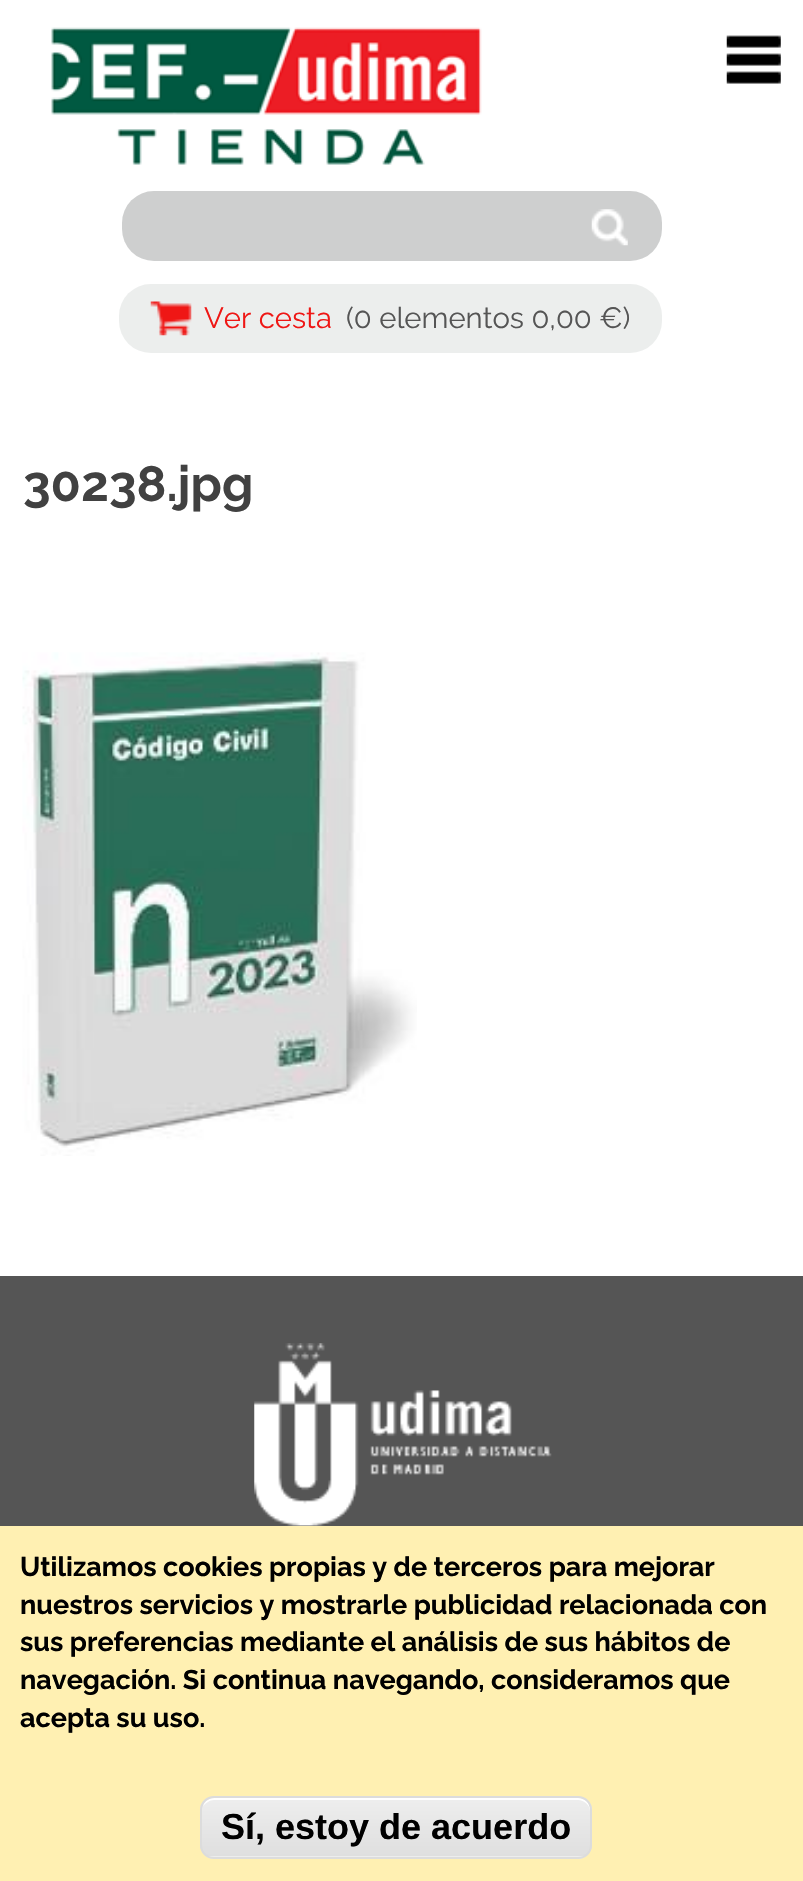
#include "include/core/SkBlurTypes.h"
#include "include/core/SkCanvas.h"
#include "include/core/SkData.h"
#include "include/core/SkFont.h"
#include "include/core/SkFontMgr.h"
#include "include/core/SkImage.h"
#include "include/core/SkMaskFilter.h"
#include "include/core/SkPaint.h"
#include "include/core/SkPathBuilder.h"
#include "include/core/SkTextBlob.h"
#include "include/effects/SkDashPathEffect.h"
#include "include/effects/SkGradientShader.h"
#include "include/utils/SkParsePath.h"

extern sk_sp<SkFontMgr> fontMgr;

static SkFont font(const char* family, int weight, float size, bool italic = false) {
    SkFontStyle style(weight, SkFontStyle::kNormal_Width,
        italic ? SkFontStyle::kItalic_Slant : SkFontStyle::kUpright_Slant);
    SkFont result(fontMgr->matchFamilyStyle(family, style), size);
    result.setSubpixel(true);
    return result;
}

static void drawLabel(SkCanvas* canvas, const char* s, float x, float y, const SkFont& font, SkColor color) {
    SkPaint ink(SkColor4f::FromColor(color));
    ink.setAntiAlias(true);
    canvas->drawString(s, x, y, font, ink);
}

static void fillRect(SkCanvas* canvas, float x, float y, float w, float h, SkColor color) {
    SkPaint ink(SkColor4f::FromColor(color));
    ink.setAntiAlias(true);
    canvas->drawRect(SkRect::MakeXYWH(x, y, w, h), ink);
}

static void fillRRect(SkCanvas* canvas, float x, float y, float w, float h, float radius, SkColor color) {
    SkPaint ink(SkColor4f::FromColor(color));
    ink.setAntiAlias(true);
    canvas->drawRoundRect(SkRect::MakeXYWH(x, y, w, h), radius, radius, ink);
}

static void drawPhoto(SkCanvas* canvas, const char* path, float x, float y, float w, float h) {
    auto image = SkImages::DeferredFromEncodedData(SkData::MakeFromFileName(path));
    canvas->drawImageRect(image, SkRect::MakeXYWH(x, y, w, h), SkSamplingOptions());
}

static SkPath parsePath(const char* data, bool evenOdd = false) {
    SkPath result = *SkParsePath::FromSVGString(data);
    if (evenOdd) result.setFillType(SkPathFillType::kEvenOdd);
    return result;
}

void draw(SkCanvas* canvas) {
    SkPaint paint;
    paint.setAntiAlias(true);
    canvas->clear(0xFFFFFFFF);
    drawPhoto(canvas, "assets/img1.png", 51, 27, 431, 138);
    drawPhoto(canvas, "assets/img2.png", 726, 35, 55, 49);
    fillRRect(canvas, 122, 191, 540, 70, 32, 0xFFCECFCF);
    drawPhoto(canvas, "assets/img3.png", 591, 209, 37, 37);
    fillRRect(canvas, 119, 284, 543, 69, 32, 0xFFECEEED);
    drawPhoto(canvas, "assets/img4.png", 150, 301, 42, 35);
    SkFont font1 = font("Raleway", 400, 29.25f);
    drawLabel(canvas, "Ver cesta", 204, 328, font1, 0xFFEF1715);
    drawLabel(canvas, "(0 elementos 0,00 €)", 346, 328, font1, 0xFF555555);
    SkFont font2 = font("Raleway", 700, 49.5f);
    drawLabel(canvas, "30238.jpg", 23, 501, font2, 0xFF414141);
    drawPhoto(canvas, "assets/img5.png", 22, 652, 395, 504);
    fillRect(canvas, 0, 1276, 803, 250, 0xFF555555);
    drawPhoto(canvas, "assets/img6.png", 254, 1343, 298, 183);
    fillRect(canvas, 0, 1526, 803, 355, 0xFFFFF0B2);
    SkFont font3 = font("Raleway", 700, 27);
    drawLabel(canvas, "Utilizamos cookies propias y de terceros para mejorar", 20, 1576, font3, 0xFF000000);
    drawLabel(canvas, "nuestros servicios y mostrarle publicidad relacionada con", 20, 1614, font3, 0xFF000000);
    drawLabel(canvas, "sus preferencias mediante el análisis de sus hábitos de", 20, 1651, font3, 0xFF000000);
    drawLabel(canvas, "navegación. Si continua navegando, consideramos que", 20, 1689, font3, 0xFF000000);
    drawLabel(canvas, "acepta su uso.", 20, 1727, font3, 0xFF000000);
    canvas->save();
    canvas->clipPath(parsePath("M214 1796H578C585.5 1796 592 1802.5 592 1810V1845C592 1852.5 585.5 1859 578 1859H214C206.5 1859 200 1852.5 200 1845V1810C200 1802.5 206.5 1796 214 1796Z"), true);
    {
        const SkColor colors[] = {0xFFEDEDED, 0xFFDFDFDF};
        const float stops[] = {0.05f, 1};
        const SkPoint ends[] = {{203, 1798}, {203, 1856}};
        paint.setShader(SkGradientShader::MakeLinear(ends, colors, stops, 2, SkTileMode::kClamp));
        paint.setAlpha(255);
    }
    canvas->drawRect(SkRect::MakeXYWH(200, 1798, 392, 58), paint);
    {
        const SkColor colors[] = {0xFFEDEDED, 0xFFDFDFDF};
        const float stops[] = {0.05f, 1};
        const SkPoint ends[] = {{203, 1856}, {203, 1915}};
        paint.setShader(SkGradientShader::MakeLinear(ends, colors, stops, 2, SkTileMode::kClamp));
        paint.setAlpha(255);
    }
    canvas->drawRect(SkRect::MakeXYWH(200, 1856, 392, 3), paint);
    canvas->restore();
    paint.setShader(nullptr);
    paint.setColor(0xFFFFFFFF);
    canvas->drawPath(parsePath("M214 1800H578C584 1800 590 1805 590 1811V1809C590 1803 585 1798 579 1798H214C209 1798 205 1801 203 1806C206 1803 210 1800 214 1800Z"), paint);
    paint.setStroke(true);
    paint.setStrokeWidth(2);
    paint.setColor(0xFFDCDCDC);
    canvas->drawRoundRect(SkRect::MakeXYWH(201, 1797, 390, 61), 13, 13, paint);
    SkFont font4 = font("Liberation Sans", 700, 36);
    drawLabel(canvas, "Sí, estoy de acuerdo", 221, 1839, font4, 0xFF000000);
}
